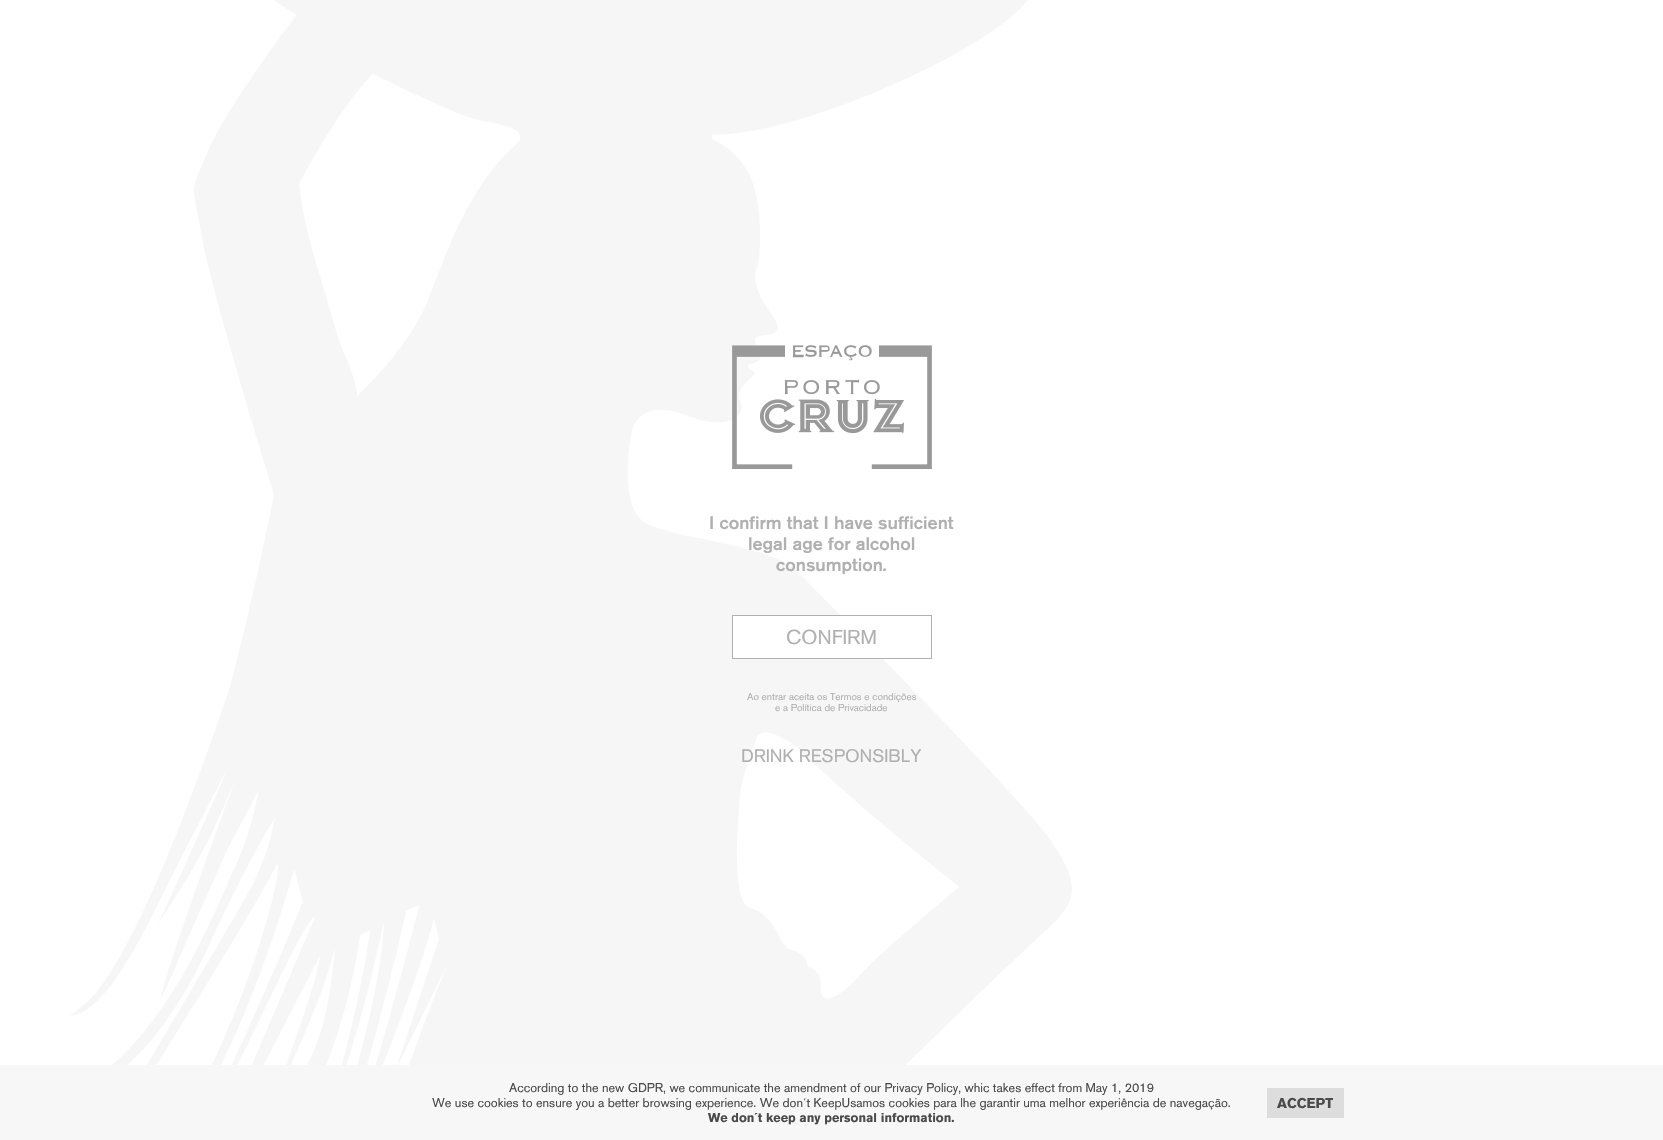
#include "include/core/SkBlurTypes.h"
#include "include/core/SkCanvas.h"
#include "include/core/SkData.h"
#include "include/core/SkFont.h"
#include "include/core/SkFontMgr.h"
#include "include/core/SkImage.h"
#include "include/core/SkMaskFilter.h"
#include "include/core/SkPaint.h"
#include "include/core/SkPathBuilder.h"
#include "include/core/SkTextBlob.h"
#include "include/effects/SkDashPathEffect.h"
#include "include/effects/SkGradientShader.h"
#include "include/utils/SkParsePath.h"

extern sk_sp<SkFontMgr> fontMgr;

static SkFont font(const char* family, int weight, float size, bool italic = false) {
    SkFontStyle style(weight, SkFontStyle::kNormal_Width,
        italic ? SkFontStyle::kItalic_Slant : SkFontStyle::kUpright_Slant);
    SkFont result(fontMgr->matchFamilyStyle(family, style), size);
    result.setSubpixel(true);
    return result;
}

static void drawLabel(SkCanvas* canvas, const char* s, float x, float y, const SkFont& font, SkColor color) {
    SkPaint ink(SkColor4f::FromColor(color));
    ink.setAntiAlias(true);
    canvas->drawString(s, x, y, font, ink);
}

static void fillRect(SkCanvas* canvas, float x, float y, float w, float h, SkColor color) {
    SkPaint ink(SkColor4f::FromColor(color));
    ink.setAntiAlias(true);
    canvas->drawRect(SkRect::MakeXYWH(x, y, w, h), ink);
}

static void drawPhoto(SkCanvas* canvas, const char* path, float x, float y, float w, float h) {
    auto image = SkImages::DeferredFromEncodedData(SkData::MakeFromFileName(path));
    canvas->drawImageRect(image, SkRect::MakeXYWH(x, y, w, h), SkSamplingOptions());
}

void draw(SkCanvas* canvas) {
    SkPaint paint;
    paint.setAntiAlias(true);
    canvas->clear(0xFFFFFFFF);
    drawPhoto(canvas, "assets/img1.png", 69, 0, 1003, 1065);
    drawPhoto(canvas, "assets/img2.png", 732, 345, 200, 124);
    SkFont font1 = font("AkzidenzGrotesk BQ", 500, 18);
    drawLabel(canvas, "I confirm that I have sufficient", 709, 529, font1, 0xFFB0B0B0);
    drawLabel(canvas, "legal age for alcohol", 748, 550, font1, 0xFFB0B0B0);
    drawLabel(canvas, "consumption.", 776, 571, font1, 0xFFB0B0B0);
    fillRect(canvas, 733, 616, 149, 42, 0xFFFFFFFF);
    paint.setStroke(true);
    paint.setStrokeWidth(1);
    paint.setColor(0xFFB0B0B0);
    canvas->drawRect(SkRect::MakeXYWH(732.5f, 615.5f, 199, 43), paint);
    SkFont font2 = font("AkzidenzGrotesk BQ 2", 500, 20);
    drawLabel(canvas, "CONFIRM", 786, 644, font2, 0xFFB0B0B0);
    SkFont font3 = font("AkzidenzGrotesk BQ 2", 500, 10);
    drawLabel(canvas, "Ao entrar aceita os Termos e condições", 747, 700, font3, 0xFFB0B0B0);
    drawLabel(canvas, "e a Política de Privacidade", 775, 711, font3, 0xFFB0B0B0);
    SkFont font4 = font("AkzidenzGrotesk BQ 2", 500, 18);
    drawLabel(canvas, "DRINK RESPONSIBLY", 741, 762, font4, 0xFFB0B0B0);
    fillRect(canvas, 0, 1065, 1663, 75, 0xFFF7F7F7);
    SkFont font5 = font("AkzidenzGrotesk BQ 2", 500, 12.6f);
    drawLabel(canvas, "According to the new GDPR, we communicate the amendment of our Privacy Policy, whic takes effect from May 1, 2019", 509, 1092, font5, 0xFF4A4A4A);
    drawLabel(canvas, "We use cookies to ensure you a better browsing experience. We don´t KeepUsamos cookies para lhe garantir uma melhor experiência de navegação.", 432, 1107, font5, 0xFF4A4A4A);
    SkFont font6 = font("AkzidenzGrotesk BQ", 700, 12.6f);
    drawLabel(canvas, "We don´t keep any personal information.", 708, 1122, font6, 0xFF4A4A4A);
    fillRect(canvas, 1267, 1088, 77, 30, 0xFFDDDDDD);
    SkFont font7 = font("AkzidenzGrotesk BQ", 700, 14);
    drawLabel(canvas, "ACCEPT", 1277, 1108, font7, 0xFF4A4A4A);
}
